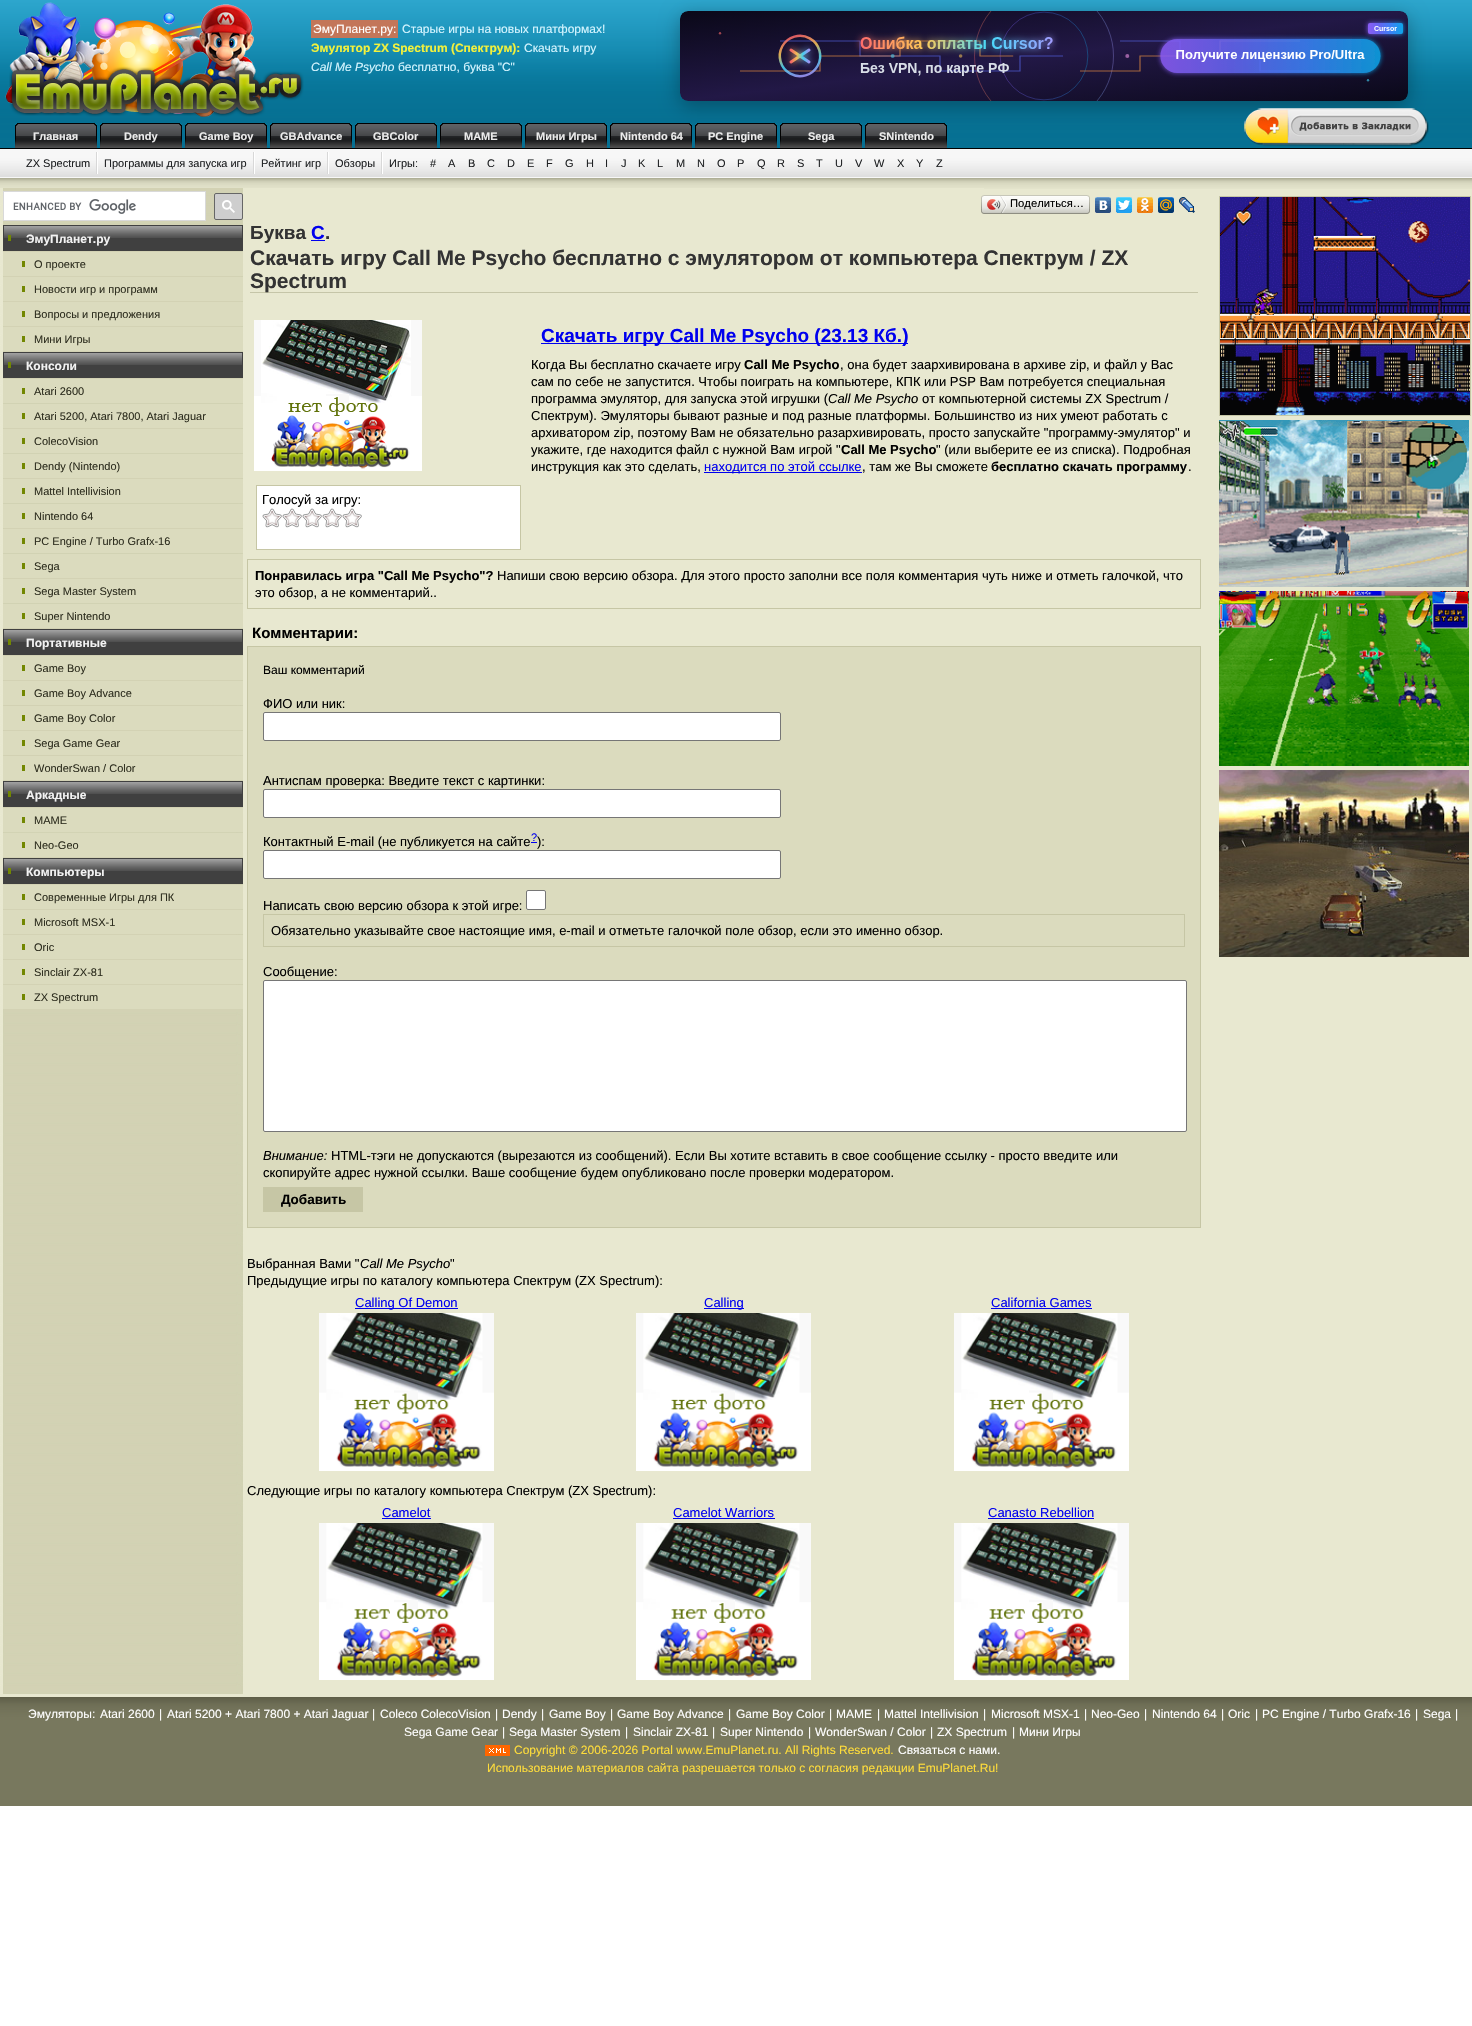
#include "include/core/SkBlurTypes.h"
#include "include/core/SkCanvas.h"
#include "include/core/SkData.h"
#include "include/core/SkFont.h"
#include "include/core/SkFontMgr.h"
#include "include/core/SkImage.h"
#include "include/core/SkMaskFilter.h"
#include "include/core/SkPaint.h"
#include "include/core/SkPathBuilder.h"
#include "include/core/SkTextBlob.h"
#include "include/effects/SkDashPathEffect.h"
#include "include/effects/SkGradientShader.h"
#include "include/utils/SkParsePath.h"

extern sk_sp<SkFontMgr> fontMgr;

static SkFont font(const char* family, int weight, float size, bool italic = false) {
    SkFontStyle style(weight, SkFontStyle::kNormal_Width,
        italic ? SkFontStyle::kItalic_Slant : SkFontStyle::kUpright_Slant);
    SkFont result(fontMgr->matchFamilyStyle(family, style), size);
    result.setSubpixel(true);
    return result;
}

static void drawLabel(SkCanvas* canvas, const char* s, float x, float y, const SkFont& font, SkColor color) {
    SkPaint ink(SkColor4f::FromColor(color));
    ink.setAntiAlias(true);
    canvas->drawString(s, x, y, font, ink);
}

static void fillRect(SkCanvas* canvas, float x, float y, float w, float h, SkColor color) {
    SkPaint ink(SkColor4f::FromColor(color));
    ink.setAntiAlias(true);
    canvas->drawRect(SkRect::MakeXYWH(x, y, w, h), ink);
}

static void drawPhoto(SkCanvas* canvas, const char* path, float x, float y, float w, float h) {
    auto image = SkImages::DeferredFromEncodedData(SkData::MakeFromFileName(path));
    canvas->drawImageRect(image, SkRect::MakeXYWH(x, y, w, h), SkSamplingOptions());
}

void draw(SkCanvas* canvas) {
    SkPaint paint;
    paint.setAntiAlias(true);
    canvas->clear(0xFFFFFFFF);
    drawPhoto(canvas, "assets/img1.png", 0, 0, 1472, 178);
    drawPhoto(canvas, "assets/img2.png", 5, 2, 299, 115);
    fillRect(canvas, 311, 20, 87, 18, 0xFFC37659);
    SkFont font1 = font("Liberation Sans", 400, 12);
    drawLabel(canvas, "ЭмуПланет.ру:", 313, 33, font1, 0xFFFFFFFF);
    drawLabel(canvas, "Старые игры на новых платформах!", 402, 33, font1, 0xFFD4F5FF);
    SkFont font2 = font("Liberation Sans", 700, 12);
    drawLabel(canvas, "Эмулятор ZX Spectrum (Спектрум):", 311, 52, font2, 0xFFF4F23C);
    drawLabel(canvas, "Скачать игру", 524, 52, font1, 0xFFD4F5FF);
    SkFont font3 = font("Liberation Sans", 400, 12, true);
    drawLabel(canvas, "Call Me Psycho", 311, 71, font3, 0xFFD4F5FF);
    drawLabel(canvas, "бесплатно, буква \"C\"", 398, 71, font1, 0xFFD4F5FF);
    drawPhoto(canvas, "assets/img4.png", 610, 123, 82, 25);
    drawPhoto(canvas, "assets/img4.png", 695, 123, 82, 25);
    drawPhoto(canvas, "assets/img4.png", 780, 123, 82, 25);
    drawPhoto(canvas, "assets/img4.png", 865, 123, 82, 25);
    paint.setColor(0x4D000000);
    paint.setMaskFilter(SkMaskFilter::MakeBlur(kNormal_SkBlurStyle, 10));
    canvas->drawRoundRect(SkRect::MakeXYWH(680, 16, 728, 90), 8, 8, paint);
    paint.setMaskFilter(nullptr);
    drawPhoto(canvas, "assets/img3.png", 680, 11, 728, 90);
    drawPhoto(canvas, "assets/img4.png", 15, 123, 82, 25);
    SkFont font4 = font("Liberation Sans", 700, 11);
    drawLabel(canvas, "Главная", 33, 140, font4, 0xFFEBEBEB);
    drawPhoto(canvas, "assets/img4.png", 100, 123, 82, 25);
    drawLabel(canvas, "Dendy", 124, 140, font4, 0xFFEBEBEB);
    drawPhoto(canvas, "assets/img4.png", 185, 123, 82, 25);
    drawLabel(canvas, "Game Boy", 199, 140, font4, 0xFFEBEBEB);
    drawPhoto(canvas, "assets/img4.png", 270, 123, 82, 25);
    drawLabel(canvas, "GBAdvance", 280, 140, font4, 0xFFEBEBEB);
    drawPhoto(canvas, "assets/img4.png", 355, 123, 82, 25);
    drawLabel(canvas, "GBColor", 373, 140, font4, 0xFFEBEBEB);
    drawPhoto(canvas, "assets/img4.png", 440, 123, 82, 25);
    drawLabel(canvas, "MAME", 464, 140, font4, 0xFFEBEBEB);
    drawPhoto(canvas, "assets/img4.png", 525, 123, 82, 25);
    drawLabel(canvas, "Мини Игры", 536, 140, font4, 0xFFEBEBEB);
    drawLabel(canvas, "Nintendo 64", 620, 140, font4, 0xFFEBEBEB);
    drawLabel(canvas, "PC Engine", 708, 140, font4, 0xFFEBEBEB);
    drawLabel(canvas, "Sega", 808, 140, font4, 0xFFEBEBEB);
    drawLabel(canvas, "SNintendo", 879, 140, font4, 0xFFEBEBEB);
    drawPhoto(canvas, "assets/img5.png", 1244, 108, 185, 39);
    drawPhoto(canvas, "assets/img6.png", 96, 152, 2, 22);
    SkFont font5 = font("Liberation Sans", 400, 11);
    drawLabel(canvas, "ZX Spectrum", 26, 167, font5, 0xFF1F2123);
    drawPhoto(canvas, "assets/img6.png", 253, 152, 2, 22);
    drawLabel(canvas, "Программы для запуска игр", 104, 167, font5, 0xFF1F2123);
    drawPhoto(canvas, "assets/img6.png", 327, 152, 2, 22);
    drawLabel(canvas, "Рейтинг игр", 261, 167, font5, 0xFF1F2123);
    drawPhoto(canvas, "assets/img6.png", 381, 152, 2, 22);
    drawLabel(canvas, "Обзоры", 335, 167, font5, 0xFF1F2123);
    drawLabel(canvas, "Игры:", 389, 167, font5, 0xFF1F2123);
    drawLabel(canvas, "#", 430, 167, font5, 0xFF1F2123);
    drawLabel(canvas, "A", 448, 167, font5, 0xFF1F2123);
    drawLabel(canvas, "B", 468, 167, font5, 0xFF1F2123);
    drawLabel(canvas, "C", 487, 167, font5, 0xFF1F2123);
    drawLabel(canvas, "D", 507, 167, font5, 0xFF1F2123);
    drawLabel(canvas, "E", 527, 167, font5, 0xFF1F2123);
    drawLabel(canvas, "F", 546, 167, font5, 0xFF1F2123);
    drawLabel(canvas, "G", 565, 167, font5, 0xFF1F2123);
    drawLabel(canvas, "H", 586, 167, font5, 0xFF1F2123);
    drawLabel(canvas, "I", 605, 167, font5, 0xFF1F2123);
    drawLabel(canvas, "J", 621, 167, font5, 0xFF1F2123);
    drawLabel(canvas, "K", 638, 167, font5, 0xFF1F2123);
    drawLabel(canvas, "L", 657, 167, font5, 0xFF1F2123);
    drawLabel(canvas, "M", 676, 167, font5, 0xFF1F2123);
    drawLabel(canvas, "N", 697, 167, font5, 0xFF1F2123);
    drawLabel(canvas, "O", 717, 167, font5, 0xFF1F2123);
    drawLabel(canvas, "P", 737, 167, font5, 0xFF1F2123);
    drawLabel(canvas, "Q", 757, 167, font5, 0xFF1F2123);
    drawLabel(canvas, "R", 777, 167, font5, 0xFF1F2123);
    drawLabel(canvas, "S", 797, 167, font5, 0xFF1F2123);
    drawLabel(canvas, "T", 816, 167, font5, 0xFF1F2123);
    drawLabel(canvas, "U", 835, 167, font5, 0xFF1F2123);
    drawLabel(canvas, "V", 855, 167, font5, 0xFF1F2123);
    drawLabel(canvas, "W", 874, 167, font5, 0xFF1F2123);
    drawLabel(canvas, "X", 897, 167, font5, 0xFF1F2123);
    drawLabel(canvas, "Y", 916, 167, font5, 0xFF1F2123);
    drawLabel(canvas, "Z", 936, 167, font5, 0xFF1F2123);
    fillRect(canvas, 0, 189, 1472, 1508, 0xFFE8E8D0);
    drawPhoto(canvas, "assets/img7.png", 0, 178, 1472, 11);
    drawPhoto(canvas, "assets/img8.png", 0, 188, 984, 1506);
    paint.setColor(0xFFFFFFFF);
    canvas->drawRect(SkRect::MakeXYWH(3.5f, 191.5f, 202, 29), paint);
    paint.setStroke(true);
    paint.setStrokeWidth(1);
    paint.setColor(0xFFD9D9D9);
    canvas->drawRect(SkRect::MakeXYWH(3.5f, 191.5f, 202, 29), paint);
    drawPhoto(canvas, "assets/img9.png", 13, 199, 123, 15);
    paint.setStroke(false);
    paint.setColor(0xFFCECECE);
    canvas->drawRoundRect(SkRect::MakeXYWH(214.5f, 193.5f, 28, 26), 1.5f, 1.5f, paint);
    paint.setStroke(true);
    paint.setColor(0xFF666666);
    canvas->drawRoundRect(SkRect::MakeXYWH(214.5f, 193.5f, 28, 26), 1.5f, 1.5f, paint);
    drawPhoto(canvas, "assets/img10.png", 222, 200, 13, 13);
    drawPhoto(canvas, "assets/img11.png", 4, 225, 238, 26);
    fillRect(canvas, 242, 225, 1, 26, 0xFF404040);
    fillRect(canvas, 3, 225, 1, 26, 0xFF404040);
    drawLabel(canvas, "ЭмуПланет.ру", 26, 243, font2, 0xFFF3F3F3);
    fillRect(canvas, 8, 235, 3, 6, 0xFF728701);
    fillRect(canvas, 3, 252, 240, 24, 0xFFDBDBBE);
    fillRect(canvas, 22, 261, 3, 6, 0xFF728701);
    drawLabel(canvas, "О проекте", 34, 268, font5, 0xFF2F2F20);
    fillRect(canvas, 3, 277, 240, 24, 0xFFDBDBBE);
    fillRect(canvas, 22, 286, 3, 6, 0xFF728701);
    drawLabel(canvas, "Новости игр и программ", 34, 293, font5, 0xFF2F2F20);
    fillRect(canvas, 3, 302, 240, 24, 0xFFDBDBBE);
    fillRect(canvas, 22, 311, 3, 6, 0xFF728701);
    drawLabel(canvas, "Вопросы и предложения", 34, 318, font5, 0xFF2F2F20);
    fillRect(canvas, 3, 327, 240, 24, 0xFFDBDBBE);
    fillRect(canvas, 22, 336, 3, 6, 0xFF728701);
    drawLabel(canvas, "Мини Игры", 34, 343, font5, 0xFF2F2F20);
    drawPhoto(canvas, "assets/img11.png", 4, 352, 238, 26);
    fillRect(canvas, 242, 352, 1, 26, 0xFF404040);
    fillRect(canvas, 3, 352, 1, 26, 0xFF404040);
    drawLabel(canvas, "Консоли", 26, 370, font2, 0xFFF3F3F3);
    fillRect(canvas, 8, 362, 3, 6, 0xFF728701);
    fillRect(canvas, 3, 379, 240, 24, 0xFFDBDBBE);
    fillRect(canvas, 22, 388, 3, 6, 0xFF728701);
    drawLabel(canvas, "Atari 2600", 34, 395, font5, 0xFF2F2F20);
    fillRect(canvas, 3, 404, 240, 24, 0xFFDBDBBE);
    fillRect(canvas, 22, 413, 3, 6, 0xFF728701);
    drawLabel(canvas, "Atari 5200, Atari 7800, Atari Jaguar", 34, 420, font5, 0xFF2F2F20);
    fillRect(canvas, 3, 429, 240, 24, 0xFFDBDBBE);
    fillRect(canvas, 22, 438, 3, 6, 0xFF728701);
    drawLabel(canvas, "ColecoVision", 34, 445, font5, 0xFF2F2F20);
    fillRect(canvas, 3, 454, 240, 24, 0xFFDBDBBE);
    fillRect(canvas, 22, 463, 3, 6, 0xFF728701);
    drawLabel(canvas, "Dendy (Nintendo)", 34, 470, font5, 0xFF2F2F20);
    fillRect(canvas, 3, 479, 240, 24, 0xFFDBDBBE);
    fillRect(canvas, 22, 488, 3, 6, 0xFF728701);
    drawLabel(canvas, "Mattel Intellivision", 34, 495, font5, 0xFF2F2F20);
    fillRect(canvas, 3, 504, 240, 24, 0xFFDBDBBE);
    fillRect(canvas, 22, 513, 3, 6, 0xFF728701);
    drawLabel(canvas, "Nintendo 64", 34, 520, font5, 0xFF2F2F20);
    fillRect(canvas, 3, 529, 240, 24, 0xFFDBDBBE);
    fillRect(canvas, 22, 538, 3, 6, 0xFF728701);
    drawLabel(canvas, "PC Engine / Turbo Grafx-16", 34, 545, font5, 0xFF2F2F20);
    fillRect(canvas, 3, 554, 240, 24, 0xFFDBDBBE);
    fillRect(canvas, 22, 563, 3, 6, 0xFF728701);
    drawLabel(canvas, "Sega", 34, 570, font5, 0xFF2F2F20);
    fillRect(canvas, 3, 579, 240, 24, 0xFFDBDBBE);
    fillRect(canvas, 22, 588, 3, 6, 0xFF728701);
    drawLabel(canvas, "Sega Master System", 34, 595, font5, 0xFF2F2F20);
    fillRect(canvas, 3, 604, 240, 24, 0xFFDBDBBE);
    fillRect(canvas, 22, 613, 3, 6, 0xFF728701);
    drawLabel(canvas, "Super Nintendo", 34, 620, font5, 0xFF2F2F20);
    drawPhoto(canvas, "assets/img11.png", 4, 629, 238, 26);
    fillRect(canvas, 242, 629, 1, 26, 0xFF404040);
    fillRect(canvas, 3, 629, 1, 26, 0xFF404040);
    drawLabel(canvas, "Портативные", 26, 647, font2, 0xFFF3F3F3);
    fillRect(canvas, 8, 639, 3, 6, 0xFF728701);
    fillRect(canvas, 3, 656, 240, 24, 0xFFDBDBBE);
    fillRect(canvas, 22, 665, 3, 6, 0xFF728701);
    drawLabel(canvas, "Game Boy", 34, 672, font5, 0xFF2F2F20);
    fillRect(canvas, 3, 681, 240, 24, 0xFFDBDBBE);
    fillRect(canvas, 22, 690, 3, 6, 0xFF728701);
    drawLabel(canvas, "Game Boy Advance", 34, 697, font5, 0xFF2F2F20);
    fillRect(canvas, 3, 706, 240, 24, 0xFFDBDBBE);
    fillRect(canvas, 22, 715, 3, 6, 0xFF728701);
    drawLabel(canvas, "Game Boy Color", 34, 722, font5, 0xFF2F2F20);
    fillRect(canvas, 3, 731, 240, 24, 0xFFDBDBBE);
    fillRect(canvas, 22, 740, 3, 6, 0xFF728701);
    drawLabel(canvas, "Sega Game Gear", 34, 747, font5, 0xFF2F2F20);
    fillRect(canvas, 3, 756, 240, 24, 0xFFDBDBBE);
    fillRect(canvas, 22, 765, 3, 6, 0xFF728701);
    drawLabel(canvas, "WonderSwan / Color", 34, 772, font5, 0xFF2F2F20);
    drawPhoto(canvas, "assets/img11.png", 4, 781, 238, 26);
    fillRect(canvas, 242, 781, 1, 26, 0xFF404040);
    fillRect(canvas, 3, 781, 1, 26, 0xFF404040);
    drawLabel(canvas, "Аркадные", 26, 799, font2, 0xFFF3F3F3);
    fillRect(canvas, 8, 791, 3, 6, 0xFF728701);
    fillRect(canvas, 3, 808, 240, 24, 0xFFDBDBBE);
    fillRect(canvas, 22, 817, 3, 6, 0xFF728701);
    drawLabel(canvas, "MAME", 34, 824, font5, 0xFF2F2F20);
    fillRect(canvas, 3, 833, 240, 24, 0xFFDBDBBE);
    fillRect(canvas, 22, 842, 3, 6, 0xFF728701);
    drawLabel(canvas, "Neo-Geo", 34, 849, font5, 0xFF2F2F20);
    drawPhoto(canvas, "assets/img11.png", 4, 858, 238, 26);
    fillRect(canvas, 242, 858, 1, 26, 0xFF404040);
    fillRect(canvas, 3, 858, 1, 26, 0xFF404040);
    drawLabel(canvas, "Компьютеры", 26, 876, font2, 0xFFF3F3F3);
    fillRect(canvas, 8, 868, 3, 6, 0xFF728701);
    fillRect(canvas, 3, 885, 240, 24, 0xFFDBDBBE);
    fillRect(canvas, 22, 894, 3, 6, 0xFF728701);
    drawLabel(canvas, "Современные Игры для ПК", 34, 901, font5, 0xFF2F2F20);
    fillRect(canvas, 3, 910, 240, 24, 0xFFDBDBBE);
    fillRect(canvas, 22, 919, 3, 6, 0xFF728701);
    drawLabel(canvas, "Microsoft MSX-1", 34, 926, font5, 0xFF2F2F20);
    fillRect(canvas, 3, 935, 240, 24, 0xFFDBDBBE);
    fillRect(canvas, 22, 944, 3, 6, 0xFF728701);
    drawLabel(canvas, "Oric", 34, 951, font5, 0xFF2F2F20);
    fillRect(canvas, 3, 960, 240, 24, 0xFFDBDBBE);
    fillRect(canvas, 22, 969, 3, 6, 0xFF728701);
    drawLabel(canvas, "Sinclair ZX-81", 34, 976, font5, 0xFF2F2F20);
    fillRect(canvas, 3, 985, 240, 24, 0xFFDBDBBE);
    fillRect(canvas, 22, 994, 3, 6, 0xFF728701);
    drawLabel(canvas, "ZX Spectrum", 34, 1001, font5, 0xFF2F2F20);
    drawPhoto(canvas, "assets/img12.png", 984, 195, 103, 19);
    drawPhoto(canvas, "assets/img13.png", 981, 195, 3, 19);
    drawPhoto(canvas, "assets/img14.png", 987, 196, 20, 17);
    SkFont font6 = font("Liberation Sans", 400, 11.25f);
    drawLabel(canvas, "Поделиться…", 1010, 207, font6, 0xFF000000);
    drawPhoto(canvas, "assets/img15.png", 1087, 195, 3, 19);
    drawPhoto(canvas, "assets/img16.png", 1095, 197, 16, 16);
    drawPhoto(canvas, "assets/img17.png", 1116, 197, 16, 16);
    drawPhoto(canvas, "assets/img18.png", 1137, 197, 16, 16);
    drawPhoto(canvas, "assets/img19.png", 1158, 197, 16, 16);
    drawPhoto(canvas, "assets/img20.png", 1179, 197, 16, 16);
    SkFont font7 = font("Liberation Sans", 700, 19);
    drawLabel(canvas, "Буква", 250, 239, font7, 0xFF333333);
    drawLabel(canvas, "C", 311, 239, font7, 0xFF0000EE);
    fillRect(canvas, 311, 240, 14, 1, 0xFF0000EE);
    drawLabel(canvas, ".", 325, 239, font7, 0xFF333333);
    fillRect(canvas, 250, 292, 948, 1, 0xFFC5C5A8);
    SkFont font8 = font("Liberation Sans", 700, 21);
    drawLabel(canvas, "Скачать игру Call Me Psycho бесплатно с эмулятором от компьютера Спектрум / ZX", 250, 265, font8, 0xFF333333);
    drawLabel(canvas, "Spectrum", 250, 288, font8, 0xFF333333);
    fillRect(canvas, 541, 343, 367, 1, 0xFF0000EE);
    drawLabel(canvas, "Скачать игру Call Me Psycho (23.13 Кб.)", 541, 342, font7, 0xFF0000EE);
    SkFont font9 = font("Liberation Sans", 400, 13);
    drawLabel(canvas, "Когда Вы бесплатно скачаете игру", 531, 369, font9, 0xFF000000);
    SkFont font10 = font("Liberation Sans", 700, 13);
    drawLabel(canvas, "Call Me Psycho", 744, 369, font10, 0xFF000000);
    drawLabel(canvas, ", она будет заархивирована в архиве zip, и файл у Вас", 840, 369, font9, 0xFF000000);
    drawLabel(canvas, "сам по себе не запустится. Чтобы поиграть на компьютере, КПК или PSP Вам потребуется специальная", 531, 386, font9, 0xFF000000);
    drawLabel(canvas, "программа эмулятор, для запуска этой игрушки (", 531, 403, font9, 0xFF000000);
    SkFont font11 = font("Liberation Sans", 400, 13, true);
    drawLabel(canvas, "Call Me Psycho", 828, 403, font11, 0xFF000000);
    drawLabel(canvas, "от компьютерной системы ZX Spectrum /", 922, 403, font9, 0xFF000000);
    drawLabel(canvas, "Спектрум). Эмуляторы бывают разные и под разные платформы. Большинство из них умеют работать с", 531, 420, font9, 0xFF000000);
    drawLabel(canvas, "архиватором zip, поэтому Вам не обязательно разархивировать, просто запускайте \"программу-эмулятор\" и", 531, 437, font9, 0xFF000000);
    drawLabel(canvas, "укажите, где находится файл с нужной Вам игрой \"", 531, 454, font9, 0xFF000000);
    drawLabel(canvas, "Call Me Psycho", 841, 454, font10, 0xFF000000);
    drawLabel(canvas, "\" (или выберите ее из списка). Подробная", 936, 454, font9, 0xFF000000);
    drawLabel(canvas, "инструкция как это сделать,", 531, 471, font9, 0xFF000000);
    fillRect(canvas, 704, 472, 158, 1, 0xFF0000EE);
    drawLabel(canvas, "находится по этой ссылке", 704, 471, font9, 0xFF0000EE);
    drawLabel(canvas, ", там же Вы сможете", 862, 471, font9, 0xFF000000);
    drawLabel(canvas, "бесплатно скачать программу", 991, 471, font10, 0xFF000000);
    drawLabel(canvas, ".", 1188, 471, font9, 0xFF000000);
    drawPhoto(canvas, "assets/img21.png", 254, 320, 168, 151);
    paint.setStroke(false);
    paint.setColor(0xFFFFFFFF);
    canvas->drawRect(SkRect::MakeXYWH(256.5f, 485.5f, 264, 64), paint);
    paint.setStroke(true);
    paint.setColor(0xFFC6C6A5);
    canvas->drawRect(SkRect::MakeXYWH(256.5f, 485.5f, 264, 64), paint);
    drawLabel(canvas, "Голосуй за игру:", 262, 504, font9, 0xFF000000);
    drawPhoto(canvas, "assets/img22.png", 262, 508, 100, 20);
    canvas->drawRect(SkRect::MakeXYWH(247.5f, 559.5f, 953, 49), paint);
    drawLabel(canvas, "Понравилась игра \"Call Me Psycho\"?", 255, 580, font10, 0xFF000000);
    drawLabel(canvas, "Напиши свою версию обзора. Для этого просто заполни все поля комментария чуть ниже и отметь галочкой, что", 497, 580, font9, 0xFF000000);
    drawLabel(canvas, "это обзор, а не комментарий..", 255, 597, font9, 0xFF000000);
    SkFont font12 = font("Liberation Sans", 700, 15);
    drawLabel(canvas, "Комментарии:", 252, 638, font12, 0xFF000000);
    paint.setStroke(false);
    paint.setColor(0xFFDBDBBE);
    canvas->drawRect(SkRect::MakeXYWH(247.5f, 646.5f, 953, 581), paint);
    paint.setStroke(true);
    paint.setColor(0xFFC6C6A5);
    canvas->drawRect(SkRect::MakeXYWH(247.5f, 646.5f, 953, 581), paint);
    drawLabel(canvas, "Ваш комментарий", 263, 674, font1, 0xFF000000);
    drawLabel(canvas, "ФИО или ник:", 263, 708, font9, 0xFF000000);
    paint.setStroke(false);
    paint.setColor(0xFFFFFFFF);
    canvas->drawRoundRect(SkRect::MakeXYWH(263.5f, 712.5f, 517, 28), 1.5f, 1.5f, paint);
    paint.setStroke(true);
    paint.setColor(0xFF767676);
    canvas->drawRoundRect(SkRect::MakeXYWH(263.5f, 712.5f, 517, 28), 1.5f, 1.5f, paint);
    drawLabel(canvas, "Антиспам проверка: Введите текст с картинки:", 263, 785, font9, 0xFF000000);
    paint.setStroke(false);
    paint.setColor(0xFFFFFFFF);
    canvas->drawRoundRect(SkRect::MakeXYWH(263.5f, 789.5f, 517, 28), 1.5f, 1.5f, paint);
    paint.setStroke(true);
    paint.setColor(0xFF767676);
    canvas->drawRoundRect(SkRect::MakeXYWH(263.5f, 789.5f, 517, 28), 1.5f, 1.5f, paint);
    drawLabel(canvas, "Контактный E-mail (не публикуется на сайте", 263, 846, font9, 0xFF000000);
    drawLabel(canvas, "?", 531, 841, font5, 0xFF0000EE);
    fillRect(canvas, 531, 842, 6, 1, 0xFF0000EE);
    drawLabel(canvas, "):", 537, 846, font9, 0xFF000000);
    paint.setStroke(false);
    paint.setColor(0xFFFFFFFF);
    canvas->drawRoundRect(SkRect::MakeXYWH(263.5f, 850.5f, 517, 28), 1.5f, 1.5f, paint);
    paint.setStroke(true);
    paint.setColor(0xFF767676);
    canvas->drawRoundRect(SkRect::MakeXYWH(263.5f, 850.5f, 517, 28), 1.5f, 1.5f, paint);
    drawLabel(canvas, "Написать свою версию обзора к этой игре:", 263, 910, font9, 0xFF000000);
    paint.setStroke(false);
    paint.setColor(0xFFFFFFFF);
    canvas->drawRoundRect(SkRect::MakeXYWH(526.5f, 890.5f, 19, 19), 1.5f, 1.5f, paint);
    paint.setStroke(true);
    paint.setColor(0xFF767676);
    canvas->drawRoundRect(SkRect::MakeXYWH(526.5f, 890.5f, 19, 19), 1.5f, 1.5f, paint);
    paint.setColor(0xFFC6C6A5);
    canvas->drawRect(SkRect::MakeXYWH(263.5f, 914.5f, 921, 32), paint);
    drawLabel(canvas, "Обязательно указывайте свое настоящие имя, e-mail и отметьте галочкой поле обзор, если это именно обзор.", 271, 935, font9, 0xFF000000);
    drawLabel(canvas, "Сообщение:", 263, 976, font9, 0xFF000000);
    paint.setStroke(false);
    paint.setColor(0xFFFFFFFF);
    canvas->drawRoundRect(SkRect::MakeXYWH(263.5f, 980.5f, 923, 151), 1.5f, 1.5f, paint);
    paint.setStroke(true);
    paint.setColor(0xFF767676);
    canvas->drawRoundRect(SkRect::MakeXYWH(263.5f, 980.5f, 923, 151), 1.5f, 1.5f, paint);
    drawLabel(canvas, "Внимание:", 263, 1160, font11, 0xFF000000);
    drawLabel(canvas, "HTML-тэги не допускаются (вырезаются из сообщений). Если Вы хотите вставить в свое сообщение ссылку - просто введите или", 331, 1160, font9, 0xFF000000);
    drawLabel(canvas, "скопируйте адрес нужной ссылки. Ваше сообщение будем опубликовано после проверки модератором.", 263, 1177, font9, 0xFF000000);
    fillRect(canvas, 263, 1187, 100, 25, 0xFFC6C6A5);
    SkFont font13 = font("Liberation Sans", 700, 13.5f);
    drawLabel(canvas, "Добавить", 281, 1204, font13, 0xFF000000);
    drawLabel(canvas, "Выбранная Вами \"", 247, 1268, font9, 0xFF000000);
    drawLabel(canvas, "Call Me Psycho", 360, 1268, font11, 0xFF000000);
    drawLabel(canvas, "\"", 450, 1268, font9, 0xFF000000);
    drawLabel(canvas, "Предыдущие игры по каталогу компьютера Спектрум (ZX Spectrum):", 247, 1285, font9, 0xFF000000);
    fillRect(canvas, 355, 1308, 103, 1, 0xFF0000EE);
    drawLabel(canvas, "Calling Of Demon", 355, 1307, font9, 0xFF0000EE);
    drawPhoto(canvas, "assets/img23.png", 319, 1313, 175, 158);
    fillRect(canvas, 704, 1308, 40, 1, 0xFF0000EE);
    drawLabel(canvas, "Calling", 704, 1307, font9, 0xFF0000EE);
    drawPhoto(canvas, "assets/img23.png", 636, 1313, 175, 158);
    drawLabel(canvas, "California Games", 991, 1307, font9, 0xFF0000EE);
    fillRect(canvas, 991, 1308, 101, 1, 0xFF0000EE);
    drawPhoto(canvas, "assets/img24.png", 954, 1313, 175, 158);
    drawLabel(canvas, "Следующие игры по каталогу компьютера Спектрум (ZX Spectrum):", 247, 1495, font9, 0xFF000000);
    drawLabel(canvas, "Camelot", 382, 1517, font9, 0xFF0000EE);
    fillRect(canvas, 382, 1518, 49, 1, 0xFF0000EE);
    drawPhoto(canvas, "assets/img25.png", 319, 1523, 175, 157);
    drawLabel(canvas, "Camelot Warriors", 673, 1517, font9, 0xFF0000EE);
    fillRect(canvas, 673, 1518, 102, 1, 0xFF0000EE);
    drawPhoto(canvas, "assets/img25.png", 636, 1523, 175, 157);
    drawLabel(canvas, "Canasto Rebellion", 988, 1517, font9, 0xFF0000EE);
    fillRect(canvas, 988, 1518, 106, 1, 0xFF0000EE);
    drawPhoto(canvas, "assets/img26.png", 954, 1523, 175, 157);
    paint.setColor(0xFFC6C6A5);
    canvas->drawRect(SkRect::MakeXYWH(1219.5f, 196.5f, 251, 219), paint);
    drawPhoto(canvas, "assets/img27.png", 1220, 197, 250, 218);
    drawPhoto(canvas, "assets/img28.png", 1219, 420, 250, 167);
    drawPhoto(canvas, "assets/img29.png", 1219, 591, 250, 175);
    drawPhoto(canvas, "assets/img30.png", 1219, 770, 250, 187);
    drawPhoto(canvas, "assets/img31.png", 0, 1697, 1472, 109);
    drawLabel(canvas, "Эмуляторы", 28, 1718, font1, 0xFFFFFFFF);
    drawLabel(canvas, ":", 92, 1718, font1, 0xFFFFFFFF);
    drawLabel(canvas, "Atari 2600", 100, 1718, font1, 0xFFFFFFFF);
    drawLabel(canvas, "|", 159, 1718, font1, 0xFFFFFFFF);
    drawLabel(canvas, "Atari 5200 + Atari 7800 + Atari Jaguar", 167, 1718, font1, 0xFFFFFFFF);
    drawLabel(canvas, "|", 372, 1718, font1, 0xFFFFFFFF);
    drawLabel(canvas, "Coleco ColecoVision", 380, 1718, font1, 0xFFFFFFFF);
    drawLabel(canvas, "|", 495, 1718, font1, 0xFFFFFFFF);
    drawLabel(canvas, "Dendy", 502, 1718, font1, 0xFFFFFFFF);
    drawLabel(canvas, "|", 541, 1718, font1, 0xFFFFFFFF);
    drawLabel(canvas, "Game Boy", 549, 1718, font1, 0xFFFFFFFF);
    drawLabel(canvas, "|", 610, 1718, font1, 0xFFFFFFFF);
    drawLabel(canvas, "Game Boy Advance", 617, 1718, font1, 0xFFFFFFFF);
    drawLabel(canvas, "|", 728, 1718, font1, 0xFFFFFFFF);
    drawLabel(canvas, "Game Boy Color", 736, 1718, font1, 0xFFFFFFFF);
    drawLabel(canvas, "|", 829, 1718, font1, 0xFFFFFFFF);
    drawLabel(canvas, "MAME", 836, 1718, font1, 0xFFFFFFFF);
    drawLabel(canvas, "|", 877, 1718, font1, 0xFFFFFFFF);
    drawLabel(canvas, "Mattel Intellivision", 884, 1718, font1, 0xFFFFFFFF);
    drawLabel(canvas, "|", 983, 1718, font1, 0xFFFFFFFF);
    drawLabel(canvas, "Microsoft MSX-1", 991, 1718, font1, 0xFFFFFFFF);
    drawLabel(canvas, "|", 1084, 1718, font1, 0xFFFFFFFF);
    drawLabel(canvas, "Neo-Geo", 1091, 1718, font1, 0xFFFFFFFF);
    drawLabel(canvas, "|", 1144, 1718, font1, 0xFFFFFFFF);
    drawLabel(canvas, "Nintendo 64", 1152, 1718, font1, 0xFFFFFFFF);
    drawLabel(canvas, "|", 1221, 1718, font1, 0xFFFFFFFF);
    drawLabel(canvas, "Oric", 1228, 1718, font1, 0xFFFFFFFF);
    drawLabel(canvas, "|", 1255, 1718, font1, 0xFFFFFFFF);
    drawLabel(canvas, "PC Engine / Turbo Grafx-16", 1262, 1718, font1, 0xFFFFFFFF);
    drawLabel(canvas, "|", 1415, 1718, font1, 0xFFFFFFFF);
    drawLabel(canvas, "Sega", 1423, 1718, font1, 0xFFFFFFFF);
    drawLabel(canvas, "|", 1455, 1718, font1, 0xFFFFFFFF);
    drawLabel(canvas, "Sega Game Gear", 404, 1736, font1, 0xFFFFFFFF);
    drawLabel(canvas, "|", 502, 1736, font1, 0xFFFFFFFF);
    drawLabel(canvas, "Sega Master System", 509, 1736, font1, 0xFFFFFFFF);
    drawLabel(canvas, "|", 625, 1736, font1, 0xFFFFFFFF);
    drawLabel(canvas, "Sinclair ZX-81", 633, 1736, font1, 0xFFFFFFFF);
    drawLabel(canvas, "|", 712, 1736, font1, 0xFFFFFFFF);
    drawLabel(canvas, "Super Nintendo", 720, 1736, font1, 0xFFFFFFFF);
    drawLabel(canvas, "|", 808, 1736, font1, 0xFFFFFFFF);
    drawLabel(canvas, "WonderSwan / Color", 815, 1736, font1, 0xFFFFFFFF);
    drawLabel(canvas, "|", 930, 1736, font1, 0xFFFFFFFF);
    drawLabel(canvas, "ZX Spectrum", 937, 1736, font1, 0xFFFFFFFF);
    drawLabel(canvas, "|", 1012, 1736, font1, 0xFFFFFFFF);
    drawLabel(canvas, "Мини Игры", 1019, 1736, font1, 0xFFFFFFFF);
    drawPhoto(canvas, "assets/img32.png", 485, 1745, 25, 11);
    drawLabel(canvas, "Copyright © 2006-2026 Portal www.EmuPlanet.ru. All Rights Reserved.", 514, 1754, font1, 0xFFFEDC3B);
    drawLabel(canvas, "Связаться с нами.", 898, 1754, font1, 0xFFFFFFFF);
    drawLabel(canvas, "Использование материалов сайта разрешается только с согласия редакции EmuPlanet.Ru!", 487, 1772, font1, 0xFFFEDC3B);
}
